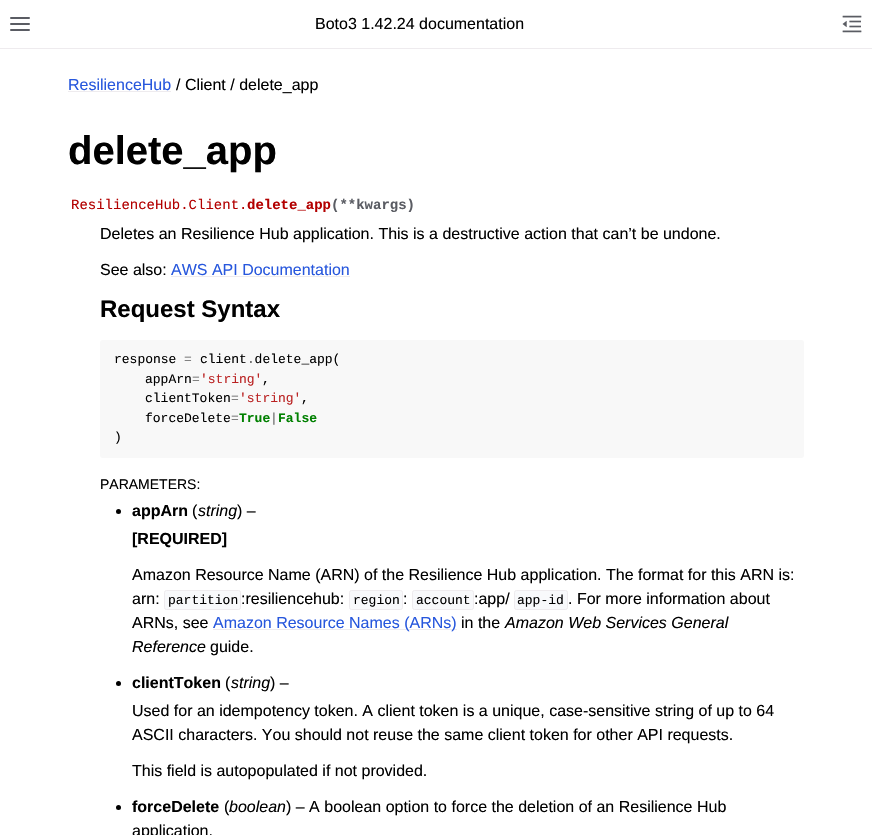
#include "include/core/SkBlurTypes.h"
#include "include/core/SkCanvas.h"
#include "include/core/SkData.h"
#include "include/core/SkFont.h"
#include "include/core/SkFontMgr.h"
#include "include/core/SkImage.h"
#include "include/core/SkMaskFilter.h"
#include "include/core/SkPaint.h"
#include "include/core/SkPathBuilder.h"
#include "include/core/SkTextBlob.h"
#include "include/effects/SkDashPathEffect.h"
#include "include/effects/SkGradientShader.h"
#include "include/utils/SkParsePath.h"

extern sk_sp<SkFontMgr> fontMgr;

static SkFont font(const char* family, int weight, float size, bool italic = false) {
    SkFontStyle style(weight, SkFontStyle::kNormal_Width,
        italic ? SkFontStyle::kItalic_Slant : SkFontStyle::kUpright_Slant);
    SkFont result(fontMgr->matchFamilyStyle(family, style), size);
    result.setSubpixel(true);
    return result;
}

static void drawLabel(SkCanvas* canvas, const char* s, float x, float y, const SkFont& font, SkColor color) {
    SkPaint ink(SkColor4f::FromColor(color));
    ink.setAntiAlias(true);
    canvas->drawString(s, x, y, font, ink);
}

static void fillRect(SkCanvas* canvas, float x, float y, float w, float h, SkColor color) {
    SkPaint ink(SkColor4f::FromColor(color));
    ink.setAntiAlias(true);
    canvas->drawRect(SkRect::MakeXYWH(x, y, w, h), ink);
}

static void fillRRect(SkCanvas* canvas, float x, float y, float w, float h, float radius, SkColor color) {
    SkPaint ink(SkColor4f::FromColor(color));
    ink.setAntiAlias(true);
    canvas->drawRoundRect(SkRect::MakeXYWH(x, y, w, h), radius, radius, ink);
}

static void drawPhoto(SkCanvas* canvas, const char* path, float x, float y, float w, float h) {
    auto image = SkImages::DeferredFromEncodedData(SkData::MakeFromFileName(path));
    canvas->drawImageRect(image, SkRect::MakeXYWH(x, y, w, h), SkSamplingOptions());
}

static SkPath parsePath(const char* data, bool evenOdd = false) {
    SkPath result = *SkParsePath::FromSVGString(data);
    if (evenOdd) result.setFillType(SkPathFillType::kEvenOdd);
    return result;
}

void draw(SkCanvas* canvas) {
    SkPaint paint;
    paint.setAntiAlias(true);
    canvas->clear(0xFFFFFFFF);
    fillRect(canvas, 0, 48, 872, 1, 0xFFEEEBEE);
    paint.setStroke(true);
    paint.setStrokeWidth(2);
    paint.setStrokeCap(SkPaint::kRound_Cap);
    paint.setStrokeJoin(SkPaint::kRound_Join);
    paint.setColor(0xFF5A5C63);
    canvas->drawPath(parsePath("M11 24H29M11 18H29M11 30H29"), paint);
    SkFont font1 = font("Liberation Sans", 400, 16);
    drawLabel(canvas, "Boto3 1.42.24 documentation", 315, 29, font1, 0xFF000000);
    drawPhoto(canvas, "assets/img1.png", 842, 15, 20, 18);
    drawLabel(canvas, "ResilienceHub", 68, 90, font1, 0xFF2757DD);
    fillRect(canvas, 68, 91, 103, 1, 0xFFEEEBEE);
    drawLabel(canvas, "/ Client / delete_app", 176, 90, font1, 0xFF000000);
    SkFont font2 = font("Liberation Sans", 700, 40);
    drawLabel(canvas, "delete_app", 68, 164, font2, 0xFF000000);
    SkFont font3 = font("Liberation Mono", 400, 14);
    drawLabel(canvas, "ResilienceHub.Client.", 71, 209, font3, 0xFFB30000);
    SkFont font4 = font("Liberation Mono", 700, 14);
    drawLabel(canvas, "delete_app", 247, 209, font4, 0xFFB30000);
    drawLabel(canvas, "(**kwargs)", 331, 209, font4, 0xFF5A5C63);
    drawLabel(canvas, "Deletes an Resilience Hub application. This is a destructive action that can’t be undone.", 100, 239, font1, 0xFF000000);
    drawLabel(canvas, "See also:", 100, 275, font1, 0xFF000000);
    drawLabel(canvas, "AWS API Documentation", 171, 275, font1, 0xFF2757DD);
    fillRect(canvas, 171, 276, 179, 1, 0xFFEEEBEE);
    SkFont font5 = font("Liberation Sans", 700, 24);
    drawLabel(canvas, "Request Syntax", 100, 317, font5, 0xFF000000);
    fillRRect(canvas, 100, 340, 704, 118, 3, 0xFFF8F8F8);
    SkFont font6 = font("Liberation Mono", 400, 13);
    drawLabel(canvas, "response", 114, 363, font6, 0xFF000000);
    drawLabel(canvas, "=", 184, 363, font6, 0xFF666666);
    drawLabel(canvas, "client delete_app(", 200, 363, font6, 0xFF000000);
    drawLabel(canvas, ".", 247, 363, font6, 0xFF666666);
    drawLabel(canvas, "appArn", 145, 383, font6, 0xFF000000);
    drawLabel(canvas, "=", 192, 383, font6, 0xFF666666);
    drawLabel(canvas, "'string'", 200, 383, font6, 0xFFBA2121);
    drawLabel(canvas, ",", 262, 383, font6, 0xFF000000);
    drawLabel(canvas, "clientToken", 145, 402, font6, 0xFF000000);
    drawLabel(canvas, "=", 231, 402, font6, 0xFF666666);
    drawLabel(canvas, "'string'", 239, 402, font6, 0xFFBA2121);
    drawLabel(canvas, ",", 301, 402, font6, 0xFF000000);
    drawLabel(canvas, "forceDelete", 145, 422, font6, 0xFF000000);
    SkFont font7 = font("Liberation Mono", 700, 13);
    drawLabel(canvas, "True False", 239, 422, font7, 0xFF008000);
    drawLabel(canvas, "=", 231, 422, font6, 0xFF666666);
    drawLabel(canvas, "|", 270, 422, font6, 0xFF666666);
    drawLabel(canvas, ")", 114, 441, font6, 0xFF000000);
    SkFont font8 = font("Liberation Sans", 400, 14);
    drawLabel(canvas, "PARAMETERS:", 100, 489, font8, 0xFF000000);
    paint.setStroke(false);
    paint.setColor(0xFF000000);
    canvas->drawCircle(118.5f, 511.5f, 2.5f, paint);
    SkFont font9 = font("Liberation Sans", 700, 16);
    drawLabel(canvas, "appArn", 132, 516, font9, 0xFF000000);
    drawLabel(canvas, "(", 192, 516, font1, 0xFF000000);
    SkFont font10 = font("Liberation Sans", 400, 16, true);
    drawLabel(canvas, "string", 198, 516, font10, 0xFF000000);
    drawLabel(canvas, ") –", 237, 516, font1, 0xFF000000);
    drawLabel(canvas, "[REQUIRED]", 132, 544, font9, 0xFF000000);
    drawLabel(canvas, "Amazon Resource Name (ARN) of the Resilience Hub application. The format for this ARN is:", 132, 580, font1, 0xFF000000);
    drawLabel(canvas, "arn:", 132, 604, font1, 0xFF000000);
    paint.setColor(0xFFF8F9FB);
    canvas->drawRoundRect(SkRect::MakeXYWH(164.5f, 590.5f, 76, 19), 2, 2, paint);
    paint.setStroke(true);
    paint.setStrokeWidth(1);
    paint.setStrokeCap(SkPaint::kButt_Cap);
    paint.setStrokeJoin(SkPaint::kMiter_Join);
    paint.setColor(0xFFEEEBEE);
    canvas->drawRoundRect(SkRect::MakeXYWH(164.5f, 590.5f, 76, 19), 2, 2, paint);
    drawLabel(canvas, "partition", 168, 604, font6, 0xFF000000);
    drawLabel(canvas, ":resiliencehub:", 241, 604, font1, 0xFF000000);
    paint.setStroke(false);
    paint.setColor(0xFFF8F9FB);
    canvas->drawRoundRect(SkRect::MakeXYWH(349.5f, 590.5f, 53, 19), 2, 2, paint);
    paint.setStroke(true);
    paint.setColor(0xFFEEEBEE);
    canvas->drawRoundRect(SkRect::MakeXYWH(349.5f, 590.5f, 53, 19), 2, 2, paint);
    drawLabel(canvas, "region", 353, 604, font6, 0xFF000000);
    drawLabel(canvas, ":", 403, 604, font1, 0xFF000000);
    paint.setStroke(false);
    paint.setColor(0xFFF8F9FB);
    canvas->drawRoundRect(SkRect::MakeXYWH(412.5f, 590.5f, 61, 19), 2, 2, paint);
    paint.setStroke(true);
    paint.setColor(0xFFEEEBEE);
    canvas->drawRoundRect(SkRect::MakeXYWH(412.5f, 590.5f, 61, 19), 2, 2, paint);
    drawLabel(canvas, "account", 416, 604, font6, 0xFF000000);
    drawLabel(canvas, ":app/", 474, 604, font1, 0xFF000000);
    paint.setStroke(false);
    paint.setColor(0xFFF8F9FB);
    canvas->drawRoundRect(SkRect::MakeXYWH(514.5f, 590.5f, 53, 19), 2, 2, paint);
    paint.setStroke(true);
    paint.setColor(0xFFEEEBEE);
    canvas->drawRoundRect(SkRect::MakeXYWH(514.5f, 590.5f, 53, 19), 2, 2, paint);
    drawLabel(canvas, "app-id", 517, 604, font6, 0xFF000000);
    drawLabel(canvas, ". For more information about", 568, 604, font1, 0xFF000000);
    drawLabel(canvas, "ARNs, see", 132, 628, font1, 0xFF000000);
    fillRect(canvas, 213, 629, 244, 1, 0xFFEEEBEE);
    drawLabel(canvas, "Amazon Resource Names (ARNs)", 213, 628, font1, 0xFF2757DD);
    drawLabel(canvas, "in the", 461, 628, font1, 0xFF000000);
    drawLabel(canvas, "Amazon Web Services General", 505, 628, font10, 0xFF000000);
    drawLabel(canvas, "Reference", 132, 652, font10, 0xFF000000);
    drawLabel(canvas, "guide.", 210, 652, font1, 0xFF000000);
    paint.setStroke(false);
    paint.setColor(0xFF000000);
    canvas->drawCircle(118.5f, 683.5f, 2.5f, paint);
    drawLabel(canvas, "clientToken", 132, 688, font9, 0xFF000000);
    drawLabel(canvas, "(", 225, 688, font1, 0xFF000000);
    drawLabel(canvas, "string", 231, 688, font10, 0xFF000000);
    drawLabel(canvas, ") –", 270, 688, font1, 0xFF000000);
    drawLabel(canvas, "Used for an idempotency token. A client token is a unique, case-sensitive string of up to 64", 132, 716, font1, 0xFF000000);
    drawLabel(canvas, "ASCII characters. You should not reuse the same client token for other API requests.", 132, 740, font1, 0xFF000000);
    drawLabel(canvas, "This field is autopopulated if not provided.", 132, 776, font1, 0xFF000000);
    canvas->drawCircle(118.5f, 807.5f, 2.5f, paint);
    drawLabel(canvas, "forceDelete", 132, 812, font9, 0xFF000000);
    drawLabel(canvas, "(", 224, 812, font1, 0xFF000000);
    drawLabel(canvas, "boolean", 229, 812, font10, 0xFF000000);
    drawLabel(canvas, ") – A boolean option to force the deletion of an Resilience Hub", 286, 812, font1, 0xFF000000);
    drawLabel(canvas, "application.", 132, 836, font1, 0xFF000000);
}
